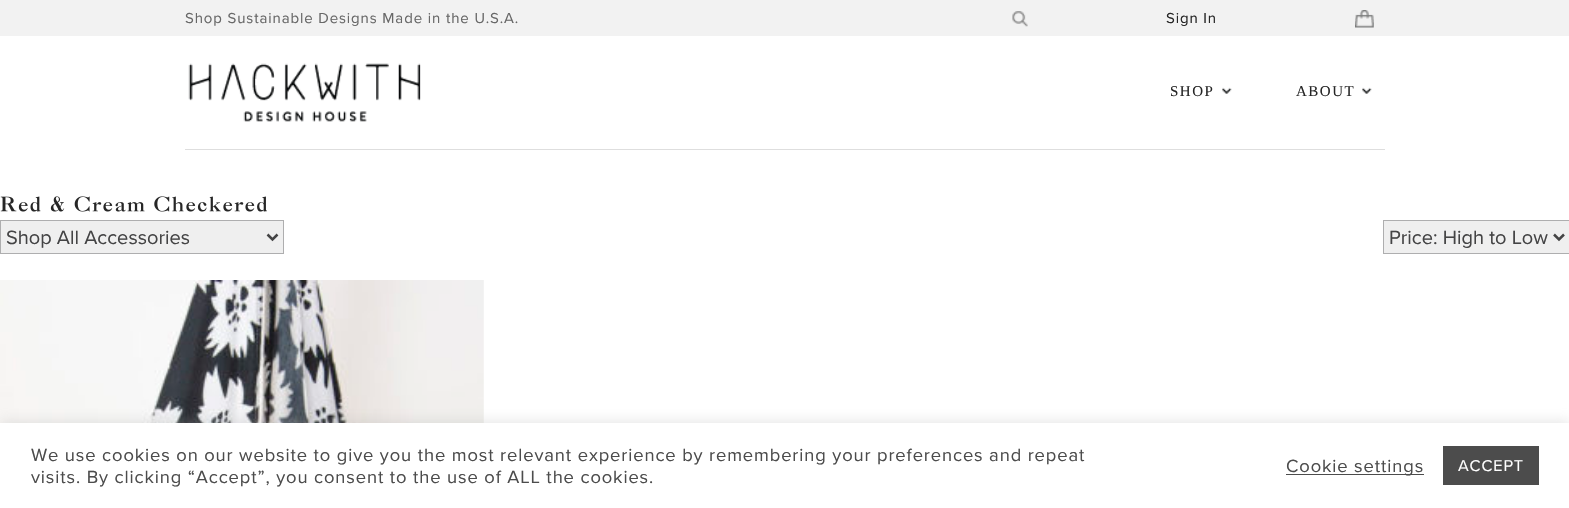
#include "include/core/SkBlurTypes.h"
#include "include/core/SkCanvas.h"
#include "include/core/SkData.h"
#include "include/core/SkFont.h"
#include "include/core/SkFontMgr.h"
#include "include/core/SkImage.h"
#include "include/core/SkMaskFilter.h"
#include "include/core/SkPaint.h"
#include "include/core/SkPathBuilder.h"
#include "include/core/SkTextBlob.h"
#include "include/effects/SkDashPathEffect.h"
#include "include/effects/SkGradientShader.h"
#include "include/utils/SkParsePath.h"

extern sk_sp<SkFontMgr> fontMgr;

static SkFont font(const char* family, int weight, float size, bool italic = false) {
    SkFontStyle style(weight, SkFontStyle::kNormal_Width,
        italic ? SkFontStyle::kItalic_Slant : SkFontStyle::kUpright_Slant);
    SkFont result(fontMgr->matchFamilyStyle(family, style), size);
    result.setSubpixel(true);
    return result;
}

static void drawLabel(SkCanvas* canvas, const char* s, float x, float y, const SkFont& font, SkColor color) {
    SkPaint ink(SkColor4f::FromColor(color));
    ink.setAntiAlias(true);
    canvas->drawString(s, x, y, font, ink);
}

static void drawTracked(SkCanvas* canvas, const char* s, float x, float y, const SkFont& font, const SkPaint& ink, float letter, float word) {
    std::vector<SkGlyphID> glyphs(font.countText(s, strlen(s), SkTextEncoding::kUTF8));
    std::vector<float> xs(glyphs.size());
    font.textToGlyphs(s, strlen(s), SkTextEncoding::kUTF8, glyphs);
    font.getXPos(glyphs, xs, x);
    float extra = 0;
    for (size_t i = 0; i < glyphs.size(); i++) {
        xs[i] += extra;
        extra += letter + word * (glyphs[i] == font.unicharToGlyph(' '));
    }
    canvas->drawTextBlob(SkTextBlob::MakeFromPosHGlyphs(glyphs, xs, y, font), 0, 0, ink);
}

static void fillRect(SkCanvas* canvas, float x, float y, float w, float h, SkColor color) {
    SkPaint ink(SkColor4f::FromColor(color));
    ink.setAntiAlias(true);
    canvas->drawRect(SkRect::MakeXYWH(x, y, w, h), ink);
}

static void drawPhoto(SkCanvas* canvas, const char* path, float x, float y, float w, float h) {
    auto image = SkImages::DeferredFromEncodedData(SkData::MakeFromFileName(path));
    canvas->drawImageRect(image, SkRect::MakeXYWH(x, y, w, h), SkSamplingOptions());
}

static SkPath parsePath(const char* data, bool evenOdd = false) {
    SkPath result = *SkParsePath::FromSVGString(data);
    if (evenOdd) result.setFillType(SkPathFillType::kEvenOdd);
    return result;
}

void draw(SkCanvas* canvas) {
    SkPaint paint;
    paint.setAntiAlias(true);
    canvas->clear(0xFFFFFFFF);
    fillRect(canvas, 0, 0, 1569, 36, 0xFFF2F2F2);
    SkFont font1 = font("Proxima Nova", 400, 15);
    paint.setColor(0xFF686868);
    drawTracked(canvas, "Shop Sustainable Designs Made in the U.S.A.", 185, 23, font1, paint, 0.88f, 0);
    drawPhoto(canvas, "assets/img1.png", 1012, 11, 16, 16);
    paint.setColor(0xFF262626);
    drawTracked(canvas, "Sign In", 1166, 23, font1, paint, 0.88f, 0);
    drawPhoto(canvas, "assets/img2.png", 1355, 10, 19, 18);
    fillRect(canvas, 185, 149, 1200, 1, 0xFFDEDEDE);
    drawPhoto(canvas, "assets/img3.png", 188, 63, 233, 59);
    SkFont font2 = font("Liberation Serif", 400, 15);
    drawTracked(canvas, "SHOP", 1170, 96, font2, paint, 1.5f, 0);
    drawPhoto(canvas, "assets/img4.png", 1222, 87, 10, 7);
    drawTracked(canvas, "ABOUT", 1296, 96, font2, paint, 1.5f, 0);
    drawPhoto(canvas, "assets/img4.png", 1362, 87, 10, 7);
    drawPhoto(canvas, "assets/img5.png", 0, 196, 267, 16);
    paint.setColor(0xFFEFEFEF);
    canvas->drawRect(SkRect::MakeXYWH(0.5f, 220.5f, 283, 33), paint);
    paint.setStroke(true);
    paint.setStrokeWidth(1);
    paint.setColor(0xFFAEAEAF);
    canvas->drawRect(SkRect::MakeXYWH(0.5f, 220.5f, 283, 33), paint);
    paint.setStrokeWidth(2.5f);
    paint.setColor(0xFF444445);
    canvas->drawPath(parsePath("M267.5 234.5L272.5 239.5L277.5 234.5"), paint);
    SkFont font3 = font("Proxima Nova", 400, 20);
    drawLabel(canvas, "Shop All Accessories", 6, 244, font3, 0xFF444445);
    paint.setStroke(false);
    paint.setColor(0xFFEFEFEF);
    canvas->drawRect(SkRect::MakeXYWH(1383.5f, 220.5f, 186, 33), paint);
    paint.setStroke(true);
    paint.setStrokeWidth(1);
    paint.setColor(0xFFAEAEAF);
    canvas->drawRect(SkRect::MakeXYWH(1383.5f, 220.5f, 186, 33), paint);
    paint.setStrokeWidth(2.5f);
    paint.setColor(0xFF444445);
    canvas->drawPath(parsePath("M1554 234.5L1559 239.5L1564 234.5"), paint);
    drawLabel(canvas, "Price: High to Low", 1389, 244, font3, 0xFF444445);
    drawPhoto(canvas, "assets/img6.png", 0, 280, 484, 143);
    paint.setStroke(false);
    paint.setColor(0x4DACABAB);
    paint.setMaskFilter(SkMaskFilter::MakeBlur(kNormal_SkBlurStyle, 6));
    canvas->drawRect(SkRect::MakeXYWH(0, 421, 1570, 87), paint);
    paint.setMaskFilter(nullptr);
    fillRect(canvas, 0, 423, 1569, 85, 0xFFFFFFFF);
    SkFont font4 = font("Proxima Nova", 400, 18.33f);
    paint.setColor(0xFF4C4C4C);
    drawTracked(canvas, "We use cookies on our website to give you the most relevant experience by remembering your preferences and repeat", 31, 461, font4, paint, 0.88f, 0);
    drawTracked(canvas, "visits. By clicking “Accept”, you consent to the use of ALL the cookies.", 31, 483, font4, paint, 0.88f, 0);
    fillRect(canvas, 1286, 474, 138, 1, 0xFF4C4C4C);
    drawTracked(canvas, "Cookie settings", 1286, 472, font4, paint, 0.88f, 0);
    fillRect(canvas, 1443, 446, 96, 39, 0xFF4C4C4C);
    SkFont font5 = font("Proxima Nova", 400, 16.25f);
    paint.setColor(0xFFFFFFFF);
    drawTracked(canvas, "ACCEPT", 1458, 471, font5, paint, 0.88f, 0);
}
